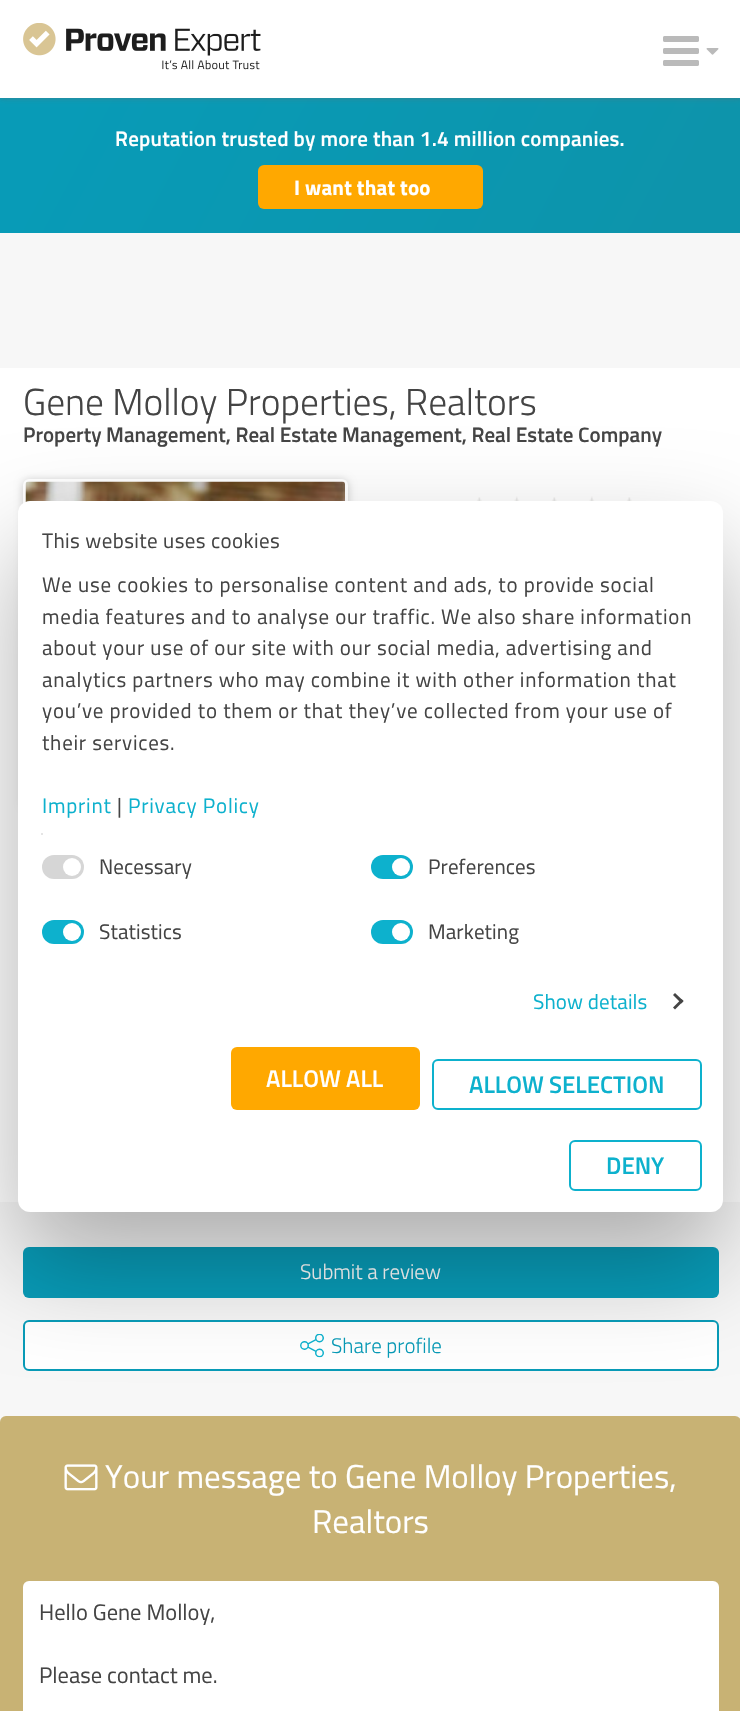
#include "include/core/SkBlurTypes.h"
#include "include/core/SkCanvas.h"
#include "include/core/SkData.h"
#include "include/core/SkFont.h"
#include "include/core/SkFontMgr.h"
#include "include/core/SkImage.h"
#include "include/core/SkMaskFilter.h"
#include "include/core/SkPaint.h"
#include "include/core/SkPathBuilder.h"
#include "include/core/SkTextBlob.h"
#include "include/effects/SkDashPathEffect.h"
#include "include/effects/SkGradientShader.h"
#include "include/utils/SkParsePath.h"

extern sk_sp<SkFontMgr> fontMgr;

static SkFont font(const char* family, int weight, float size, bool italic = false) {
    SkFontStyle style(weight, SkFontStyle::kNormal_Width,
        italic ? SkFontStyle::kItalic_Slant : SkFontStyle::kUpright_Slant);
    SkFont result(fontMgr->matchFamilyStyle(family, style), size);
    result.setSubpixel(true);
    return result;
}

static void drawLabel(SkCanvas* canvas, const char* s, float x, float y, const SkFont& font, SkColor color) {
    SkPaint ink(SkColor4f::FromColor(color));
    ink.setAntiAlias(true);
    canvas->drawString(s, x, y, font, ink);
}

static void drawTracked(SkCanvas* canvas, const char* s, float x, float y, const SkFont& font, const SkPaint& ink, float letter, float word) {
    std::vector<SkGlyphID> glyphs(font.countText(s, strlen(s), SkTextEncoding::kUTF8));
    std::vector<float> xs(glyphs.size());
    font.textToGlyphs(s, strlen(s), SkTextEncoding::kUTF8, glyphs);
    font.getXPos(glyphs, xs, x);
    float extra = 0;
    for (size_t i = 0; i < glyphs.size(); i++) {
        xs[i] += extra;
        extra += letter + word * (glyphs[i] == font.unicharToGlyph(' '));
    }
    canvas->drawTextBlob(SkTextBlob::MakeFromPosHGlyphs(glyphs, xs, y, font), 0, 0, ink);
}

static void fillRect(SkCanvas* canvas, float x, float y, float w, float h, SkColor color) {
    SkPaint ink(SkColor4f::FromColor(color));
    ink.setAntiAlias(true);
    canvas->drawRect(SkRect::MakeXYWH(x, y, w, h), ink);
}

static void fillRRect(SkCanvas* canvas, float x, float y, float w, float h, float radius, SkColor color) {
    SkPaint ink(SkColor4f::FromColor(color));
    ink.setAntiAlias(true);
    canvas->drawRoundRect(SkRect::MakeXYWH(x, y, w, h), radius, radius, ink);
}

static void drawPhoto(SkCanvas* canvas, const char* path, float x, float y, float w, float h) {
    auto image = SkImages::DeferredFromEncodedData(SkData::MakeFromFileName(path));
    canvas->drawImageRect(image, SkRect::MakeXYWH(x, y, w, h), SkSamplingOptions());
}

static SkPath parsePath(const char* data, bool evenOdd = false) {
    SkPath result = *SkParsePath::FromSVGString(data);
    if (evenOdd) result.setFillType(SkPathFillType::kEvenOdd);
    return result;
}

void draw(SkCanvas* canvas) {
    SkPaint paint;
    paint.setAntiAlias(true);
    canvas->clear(0xFFF7F7F7);
    {
        const SkColor colors[] = {0xFF089BB7, 0xFF0D94AB};
        const float stops[] = {0.08f, 0.92f};
        const SkPoint ends[] = {{54, -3.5f}, {687, 333}};
        paint.setShader(SkGradientShader::MakeLinear(ends, colors, stops, 2, SkTileMode::kClamp));
        paint.setAlpha(255);
    }
    canvas->drawRect(SkRect::MakeXYWH(0, 98, 740, 135), paint);
    paint.setShader(nullptr);
    paint.setColor(0x80696969);
    paint.setMaskFilter(SkMaskFilter::MakeBlur(kNormal_SkBlurStyle, 3));
    canvas->drawRect(SkRect::MakeXYWH(0, 0, 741, 98), paint);
    paint.setMaskFilter(nullptr);
    fillRect(canvas, 0, 0, 740, 98, 0xFFFFFFFF);
    drawPhoto(canvas, "assets/img1.png", 23, 23, 238, 47);
    drawPhoto(canvas, "assets/img2.png", 663, 36, 36, 30);
    drawPhoto(canvas, "assets/img3.png", 706, 48, 13, 7);
    SkFont font1 = font("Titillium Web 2", 600, 21);
    paint.setColor(0xFFFFFFFF);
    drawTracked(canvas, "Reputation trusted by more than 1.4 million companies.", 115, 146, font1, paint, 0.2f, 0);
    fillRRect(canvas, 258, 165, 225, 44, 6, 0xFFFFA800);
    SkFont font2 = font("Titillium Web", 700, 21);
    drawTracked(canvas, "I want that too", 294, 195, font2, paint, 0.2f, 0);
    fillRect(canvas, 0, 368, 740, 834, 0xFFFFFFFF);
    SkFont font3 = font("Titillium Web", 300, 37.5f);
    drawLabel(canvas, "Gene Molloy Properties, Realtors", 23, 415, font3, 0xFF444444);
    SkFont font4 = font("Titillium Web", 600, 21);
    drawLabel(canvas, "Property Management, Real Estate Management, Real Estate Company", 23, 442, font4, 0xFF444444);
    paint.setColor(0x33000000);
    paint.setMaskFilter(SkMaskFilter::MakeBlur(kNormal_SkBlurStyle, 4.5f));
    canvas->drawRoundRect(SkRect::MakeXYWH(23, 480, 325, 326), 6, 6, paint);
    paint.setMaskFilter(nullptr);
    paint.setStroke(true);
    paint.setStrokeWidth(3);
    paint.setColor(0xFFFFFFFF);
    canvas->drawRoundRect(SkRect::MakeXYWH(24.5f, 480.5f, 322, 322), 4.5f, 4.5f, paint);
    drawPhoto(canvas, "assets/img4.png", 25, 481, 320, 22);
    drawPhoto(canvas, "assets/img5.png", 476, 497, 6, 4);
    drawPhoto(canvas, "assets/img6.png", 514, 496, 6, 5);
    drawPhoto(canvas, "assets/img7.png", 551, 497, 6, 4);
    drawPhoto(canvas, "assets/img8.png", 589, 496, 6, 5);
    drawPhoto(canvas, "assets/img7.png", 626, 497, 6, 4);
    fillRRect(canvas, 23, 1247, 696, 51, 6, 0xFF089BB7);
    SkFont font5 = font("Titillium Web", 300, 21);
    drawLabel(canvas, "Submit a review", 300, 1279, font5, 0xFFFFFFFF);
    paint.setStroke(false);
    canvas->drawRoundRect(SkRect::MakeXYWH(24, 1321, 694, 49), 5, 5, paint);
    paint.setStroke(true);
    paint.setStrokeWidth(2);
    paint.setColor(0xFF089BB7);
    canvas->drawRoundRect(SkRect::MakeXYWH(24, 1321, 694, 49), 5, 5, paint);
    drawPhoto(canvas, "assets/img9.png", 300, 1334, 24, 24);
    drawLabel(canvas, "Share profile", 331, 1353, font5, 0xFF089BB7);
    fillRRect(canvas, 0, 1416, 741, 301, 6, 0xFFC8B274);
    drawPhoto(canvas, "assets/img10.png", 64, 1464, 34, 27);
    SkFont font6 = font("Titillium Web", 400, 33);
    drawLabel(canvas, "Your message to Gene Molloy Properties,", 105, 1488, font6, 0xFFFFFFFF);
    drawLabel(canvas, "Realtors", 312, 1533, font6, 0xFFFFFFFF);
    fillRRect(canvas, 23, 1581, 696, 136, 6, 0xFFFFFFFF);
    SkFont font7 = font("Titillium Web", 400, 22.5f);
    drawLabel(canvas, "Hello Gene Molloy,", 39, 1620, font7, 0xFF444444);
    drawLabel(canvas, "Please contact me.", 39, 1683, font7, 0xFF444444);
    paint.setStroke(false);
    paint.setColor(0x4D000000);
    paint.setMaskFilter(SkMaskFilter::MakeBlur(kNormal_SkBlurStyle, 51));
    canvas->drawRoundRect(SkRect::MakeXYWH(18, 549, 705, 711), 12, 12, paint);
    paint.setMaskFilter(nullptr);
    fillRRect(canvas, 18, 501, 705, 711, 12, 0xFFFFFFFF);
    SkFont font8 = font("Titillium Web", 400, 21);
    paint.setColor(0xFF444444);
    drawTracked(canvas, "This website uses cookies", 42, 548, font8, paint, 0.4f, 0);
    drawTracked(canvas, "We use cookies to personalise content and ads, to provide social", 42, 592, font8, paint, 0.75f, 0);
    drawTracked(canvas, "media features and to analyse our traffic. We also share information", 42, 624, font8, paint, 0.75f, 0);
    drawTracked(canvas, "about your use of our site with our social media, advertising and", 42, 655, font8, paint, 0.75f, 0);
    drawTracked(canvas, "analytics partners who may combine it with other information that", 42, 687, font8, paint, 0.75f, 0);
    drawTracked(canvas, "you’ve provided to them or that they’ve collected from your use of", 42, 718, font8, paint, 0.75f, 0);
    drawTracked(canvas, "their services.", 42, 750, font8, paint, 0.75f, 0);
    paint.setColor(0xFF0DB1CD);
    drawTracked(canvas, "Imprint", 42, 813, font8, paint, 0.75f, 0);
    paint.setColor(0xFF444444);
    drawTracked(canvas, "|", 117, 813, font8, paint, 0.75f, 0);
    paint.setColor(0xFF0DB1CD);
    drawTracked(canvas, "Privacy Policy", 128, 813, font8, paint, 0.75f, 0);
    fillRect(canvas, 41, 833, 2, 2, 0xFFE5E5E5);
    fillRRect(canvas, 42, 855, 42, 24, 12, 0xFFD6D6D6);
    paint.setColor(0xFFFFFFFF);
    canvas->drawCircle(72, 867, 9, paint);
    paint.setColor(0xFF444444);
    drawTracked(canvas, "Necessary", 99, 874, font8, paint, 0.1f, 0);
    fillRRect(canvas, 371, 855, 42, 24, 12, 0xFF0DB1CD);
    paint.setColor(0xFFFFFFFF);
    canvas->drawCircle(401, 867, 9, paint);
    paint.setColor(0xFF444444);
    drawTracked(canvas, "Preferences", 428, 874, font8, paint, 0.1f, 0);
    fillRRect(canvas, 42, 920, 42, 24, 12, 0xFF0DB1CD);
    paint.setColor(0xFFFFFFFF);
    canvas->drawCircle(72, 932, 9, paint);
    paint.setColor(0xFF444444);
    drawTracked(canvas, "Statistics", 99, 939, font8, paint, 0.1f, 0);
    fillRRect(canvas, 371, 920, 42, 24, 12, 0xFF0DB1CD);
    paint.setColor(0xFFFFFFFF);
    canvas->drawCircle(401, 932, 9, paint);
    paint.setColor(0xFF444444);
    drawTracked(canvas, "Marketing", 428, 939, font8, paint, 0.1f, 0);
    paint.setColor(0xFF0DB1CD);
    drawTracked(canvas, "Show details", 533, 1009, font8, paint, 0.1f, 0);
    paint.setColor(0xFF444444);
    canvas->drawPath(parsePath("M675 993L683.5 1001L681.5 1003.5L673 995Z"), paint);
    canvas->drawPath(parsePath("M681.5 999L683.5 1001L675 1009.5L673 1007.5Z"), paint);
    fillRRect(canvas, 231, 1047, 189, 63, 6, 0xFFFFA800);
    SkFont font9 = font("Titillium Web", 600, 24);
    drawLabel(canvas, "ALLOW ALL", 266, 1087, font9, 0xFFFFFFFF);
    paint.setStroke(true);
    paint.setColor(0xFF0DB1CD);
    canvas->drawRoundRect(SkRect::MakeXYWH(433, 1060, 268, 49), 5, 5, paint);
    drawLabel(canvas, "ALLOW SELECTION", 469, 1093, font9, 0xFF0DB1CD);
    canvas->drawRoundRect(SkRect::MakeXYWH(570, 1141, 131, 49), 5, 5, paint);
    drawLabel(canvas, "DENY", 606, 1174, font9, 0xFF0DB1CD);
}
